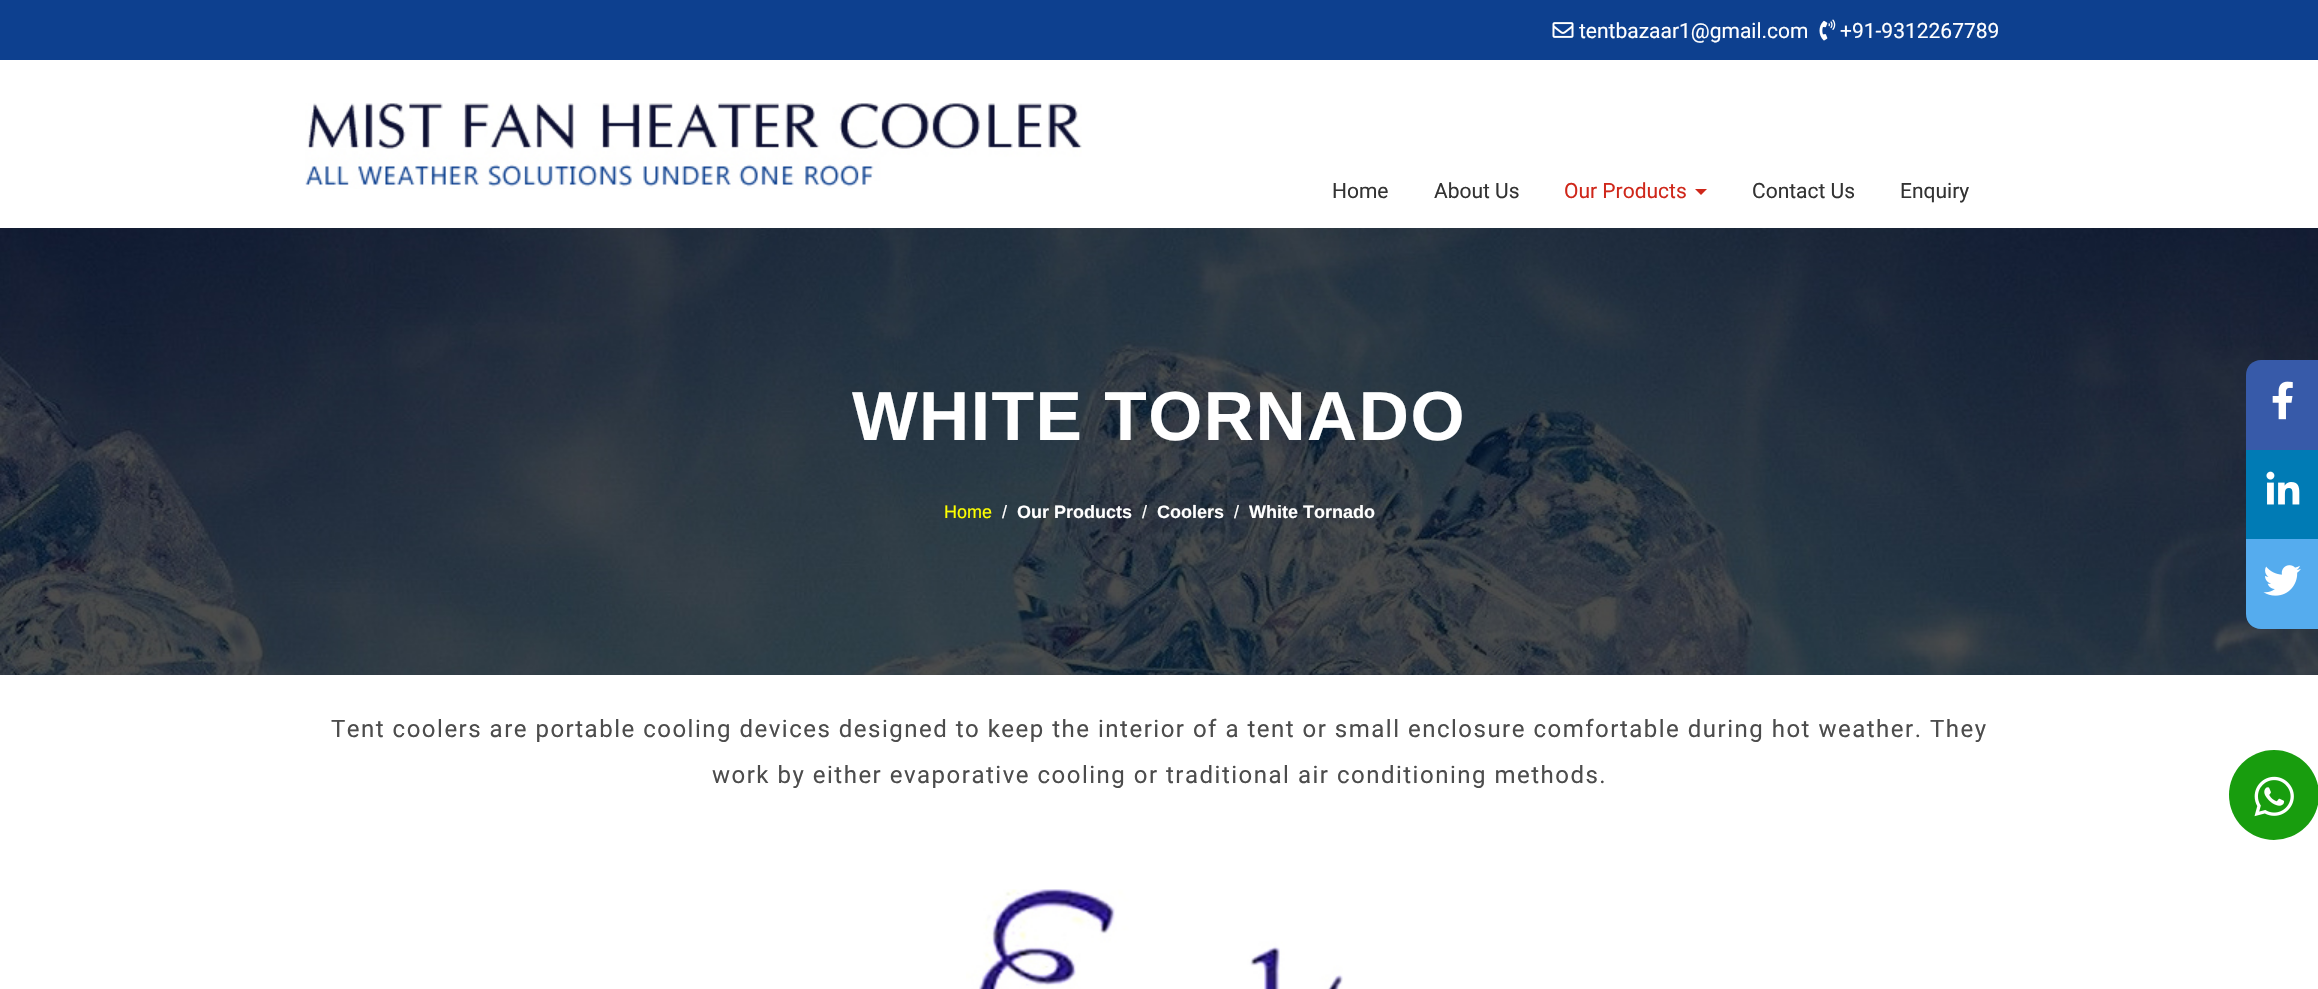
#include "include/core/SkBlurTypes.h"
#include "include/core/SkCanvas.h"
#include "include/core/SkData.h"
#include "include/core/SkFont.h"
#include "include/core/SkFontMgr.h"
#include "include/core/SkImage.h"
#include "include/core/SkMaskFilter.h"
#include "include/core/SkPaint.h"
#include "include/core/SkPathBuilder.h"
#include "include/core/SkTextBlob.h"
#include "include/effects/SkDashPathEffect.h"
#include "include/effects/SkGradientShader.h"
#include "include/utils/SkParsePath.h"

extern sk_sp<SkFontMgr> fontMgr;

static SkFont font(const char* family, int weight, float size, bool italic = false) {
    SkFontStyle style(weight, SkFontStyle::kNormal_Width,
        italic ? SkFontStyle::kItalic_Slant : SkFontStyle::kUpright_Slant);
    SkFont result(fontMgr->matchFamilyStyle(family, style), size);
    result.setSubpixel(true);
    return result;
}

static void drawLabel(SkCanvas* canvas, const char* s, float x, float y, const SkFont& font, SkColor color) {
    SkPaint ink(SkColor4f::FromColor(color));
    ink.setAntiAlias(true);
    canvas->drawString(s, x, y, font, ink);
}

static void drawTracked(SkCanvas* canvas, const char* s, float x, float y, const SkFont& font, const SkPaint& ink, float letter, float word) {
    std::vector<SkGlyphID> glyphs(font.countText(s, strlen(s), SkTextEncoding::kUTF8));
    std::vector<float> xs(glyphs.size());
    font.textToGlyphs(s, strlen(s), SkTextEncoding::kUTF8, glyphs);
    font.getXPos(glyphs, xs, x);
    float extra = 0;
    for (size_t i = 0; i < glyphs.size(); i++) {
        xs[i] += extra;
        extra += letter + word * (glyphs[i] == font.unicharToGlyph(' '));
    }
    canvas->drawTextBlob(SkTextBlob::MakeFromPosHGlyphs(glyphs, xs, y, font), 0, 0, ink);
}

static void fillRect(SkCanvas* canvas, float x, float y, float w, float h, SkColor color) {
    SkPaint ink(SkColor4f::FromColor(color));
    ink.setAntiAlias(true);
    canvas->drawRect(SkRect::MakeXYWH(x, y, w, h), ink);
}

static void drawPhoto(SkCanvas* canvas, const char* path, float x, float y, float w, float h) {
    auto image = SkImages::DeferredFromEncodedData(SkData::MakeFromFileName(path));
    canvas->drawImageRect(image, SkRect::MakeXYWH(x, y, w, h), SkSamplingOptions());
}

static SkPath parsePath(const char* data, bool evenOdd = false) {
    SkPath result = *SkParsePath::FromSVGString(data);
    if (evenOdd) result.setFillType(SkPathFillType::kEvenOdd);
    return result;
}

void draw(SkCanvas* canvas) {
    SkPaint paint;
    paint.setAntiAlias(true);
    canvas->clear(0xFFFFFFFF);
    fillRect(canvas, 0, 0, 2318, 60, 0xFF0D408F);
    drawPhoto(canvas, "assets/img1.png", 1552, 22, 22, 16);
    SkFont font1 = font("Roboto", 400, 21);
    drawLabel(canvas, "tentbazaar1@gmail.com", 1579, 38, font1, 0xFFFFFFFF);
    drawPhoto(canvas, "assets/img2.png", 1819, 19, 17, 22);
    drawLabel(canvas, "+91-9312267789", 1840, 38, font1, 0xFFFFFFFF);
    drawPhoto(canvas, "assets/img3.png", 305, 103, 777, 86);
    drawLabel(canvas, "Home", 1332, 198, font1, 0xFF333333);
    drawLabel(canvas, "About Us", 1434, 198, font1, 0xFF333333);
    drawLabel(canvas, "Our Products", 1564, 198, font1, 0xFFCF271A);
    paint.setColor(0xFFCF271A);
    canvas->drawPath(parsePath("M1695 189H1707L1701 195Z"), paint);
    drawLabel(canvas, "Contact Us", 1752, 198, font1, 0xFF333333);
    drawLabel(canvas, "Enquiry", 1900, 198, font1, 0xFF333333);
    drawPhoto(canvas, "assets/img4.png", 0, 228, 2318, 447);
    SkFont font2 = font("Liberation Sans", 700, 69.5f);
    paint.setColor(0xFFFFFFFF);
    drawTracked(canvas, "WHITE TORNADO", 852, 440, font2, paint, 1.5f, 0);
    SkFont font3 = font("Liberation Sans", 400, 18);
    drawLabel(canvas, "Home", 944, 518, font3, 0xFFFFFF00);
    drawLabel(canvas, "/", 1002, 518, font3, 0xFFFFFFFF);
    SkFont font4 = font("Liberation Sans", 700, 18);
    drawLabel(canvas, "Our Products", 1017, 518, font4, 0xFFFFFFFF);
    drawLabel(canvas, "/", 1142, 518, font3, 0xFFFFFFFF);
    drawLabel(canvas, "Coolers", 1157, 518, font4, 0xFFFFFFFF);
    drawLabel(canvas, "/", 1234, 518, font3, 0xFFFFFFFF);
    drawLabel(canvas, "White Tornado", 1249, 518, font4, 0xFFFFFFFF);
    paint.setColor(0xFF375AA9);
    canvas->drawPath(parsePath("M2261 360H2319V450H2246V375C2246 366.5 2252.5 360 2261 360Z"), paint);
    drawPhoto(canvas, "assets/img5.png", 2272, 381, 21, 39);
    fillRect(canvas, 2246, 450, 72, 89, 0xFF007BB5);
    drawPhoto(canvas, "assets/img6.png", 2266, 471, 34, 34);
    paint.setColor(0xFF55ACEE);
    canvas->drawPath(parsePath("M2246 539H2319V629H2261C2252.5 629 2246 622.5 2246 614Z"), paint);
    drawPhoto(canvas, "assets/img7.png", 2263, 565, 38, 31);
    SkFont font5 = font("Roboto", 400, 24);
    paint.setColor(0xFF4C4C4C);
    drawTracked(canvas, "Tent coolers are portable cooling devices designed to keep the interior of a tent or small enclosure comfortable during hot weather. They", 331, 737, font5, paint, 1.5f, 0);
    drawTracked(canvas, "work by either evaporative cooling or traditional air conditioning methods.", 712, 783, font5, paint, 1.5f, 0);
    paint.setColor(0xFF189D0E);
    canvas->drawCircle(2274, 795, 45, paint);
    drawPhoto(canvas, "assets/img8.png", 2254, 776, 40, 41);
    drawPhoto(canvas, "assets/img9.png", 966, 889, 377, 100);
}
